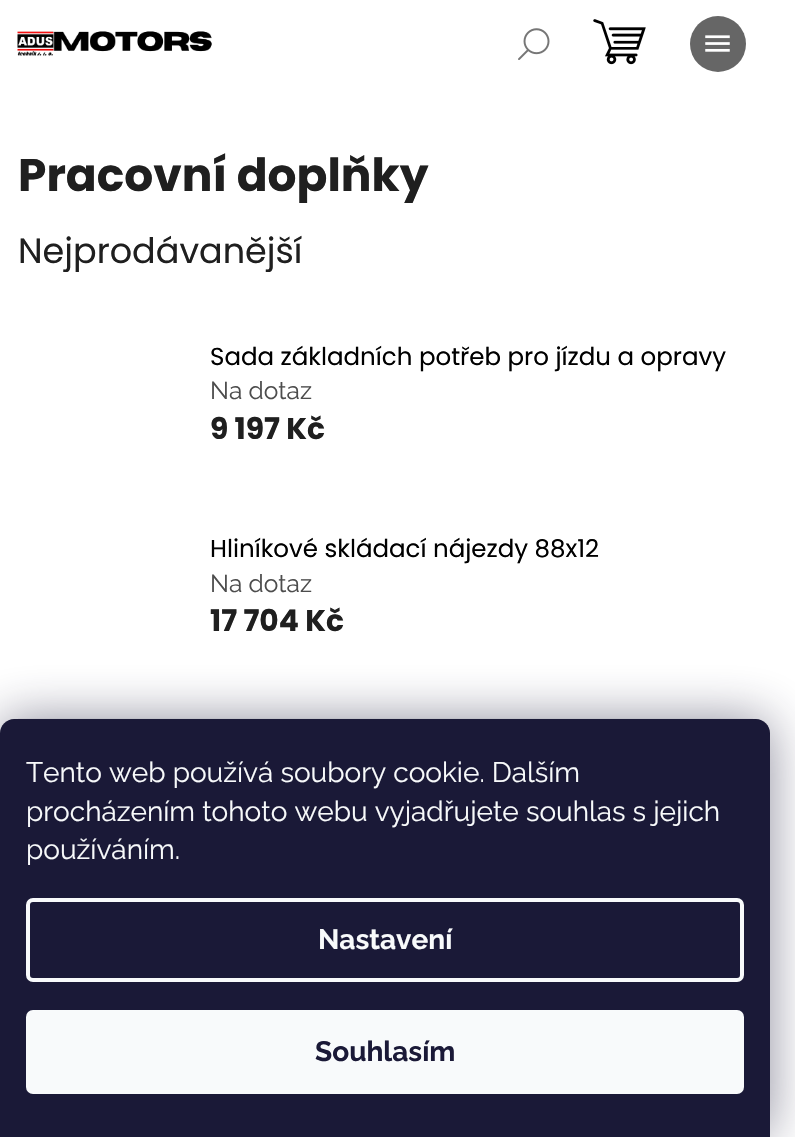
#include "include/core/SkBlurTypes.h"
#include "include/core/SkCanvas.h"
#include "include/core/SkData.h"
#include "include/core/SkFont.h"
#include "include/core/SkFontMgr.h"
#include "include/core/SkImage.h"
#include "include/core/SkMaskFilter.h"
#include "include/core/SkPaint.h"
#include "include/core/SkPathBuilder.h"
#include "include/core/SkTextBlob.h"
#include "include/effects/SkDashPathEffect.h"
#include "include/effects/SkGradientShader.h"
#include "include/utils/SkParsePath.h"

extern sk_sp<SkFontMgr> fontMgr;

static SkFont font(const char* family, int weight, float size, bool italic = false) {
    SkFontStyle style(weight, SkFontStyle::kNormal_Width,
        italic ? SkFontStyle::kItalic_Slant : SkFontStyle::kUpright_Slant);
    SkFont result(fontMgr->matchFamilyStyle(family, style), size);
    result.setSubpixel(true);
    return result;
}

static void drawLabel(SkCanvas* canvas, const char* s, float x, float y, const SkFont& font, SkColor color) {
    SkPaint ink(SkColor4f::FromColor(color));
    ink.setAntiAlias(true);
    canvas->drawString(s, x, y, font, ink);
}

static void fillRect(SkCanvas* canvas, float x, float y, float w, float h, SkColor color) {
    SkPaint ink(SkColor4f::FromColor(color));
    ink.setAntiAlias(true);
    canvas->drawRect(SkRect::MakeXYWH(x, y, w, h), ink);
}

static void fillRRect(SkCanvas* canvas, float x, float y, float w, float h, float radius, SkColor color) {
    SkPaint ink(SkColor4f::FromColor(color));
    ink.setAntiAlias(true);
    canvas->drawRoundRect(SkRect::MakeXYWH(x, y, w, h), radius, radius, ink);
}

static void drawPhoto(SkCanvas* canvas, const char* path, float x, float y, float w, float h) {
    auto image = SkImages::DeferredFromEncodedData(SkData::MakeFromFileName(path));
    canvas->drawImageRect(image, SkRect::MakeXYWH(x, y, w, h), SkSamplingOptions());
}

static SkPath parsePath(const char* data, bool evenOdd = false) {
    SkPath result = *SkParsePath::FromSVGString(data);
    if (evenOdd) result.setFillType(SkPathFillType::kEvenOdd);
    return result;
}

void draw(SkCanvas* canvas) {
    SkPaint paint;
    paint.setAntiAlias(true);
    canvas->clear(0xFFFFFFFF);
    drawPhoto(canvas, "assets/img1.png", 518, 28, 32, 32);
    paint.setColor(0xFF666666);
    canvas->drawCircle(718, 44, 28, paint);
    drawPhoto(canvas, "assets/img2.png", 705, 35, 25, 17);
    drawPhoto(canvas, "assets/img3.png", 17, 31, 195, 25);
    drawPhoto(canvas, "assets/img4.png", 593, 19, 53, 46);
    SkFont font1 = font("Poppins", 700, 45.5f);
    drawLabel(canvas, "Pracovní doplňky", 18, 191, font1, 0xFF1F1F1F);
    SkFont font2 = font("Poppins", 400, 35);
    drawLabel(canvas, "Nejprodávanější", 18, 263, font2, 0xFF1F1F1F);
    SkFont font3 = font("Poppins", 400, 24.5f);
    drawLabel(canvas, "Sada základních potřeb pro jízdu a opravy", 210, 365, font3, 0xFF000000);
    SkFont font4 = font("Raleway", 400, 24.5f);
    drawLabel(canvas, "Na dotaz", 210, 399, font4, 0xFF4D4D4D);
    SkFont font5 = font("Poppins", 700, 29.75f);
    drawLabel(canvas, "9 197 Kč", 210, 439, font5, 0xFF1F1F1F);
    drawLabel(canvas, "Hliníkové skládací nájezdy 88x12", 210, 557, font3, 0xFF000000);
    drawLabel(canvas, "Na dotaz", 210, 592, font4, 0xFF4D4D4D);
    drawLabel(canvas, "17 704 Kč", 210, 631, font5, 0xFF1F1F1F);
    fillRect(canvas, 18, 718, 735, 1, 0xFFF6F6F6);
    paint.setColor(0x801B1939);
    paint.setMaskFilter(SkMaskFilter::MakeBlur(kNormal_SkBlurStyle, 26));
    canvas->drawRoundRect(SkRect::MakeXYWH(0, 719, 770, 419), 14, 14, paint);
    paint.setMaskFilter(nullptr);
    paint.setColor(0xFF1A1937);
    canvas->drawPath(parsePath("M14 719H756C763.5 719 770 725.5 770 733V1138H0V733C0 725.5 6.5 719 14 719Z"), paint);
    SkFont font6 = font("Raleway", 400, 28);
    drawLabel(canvas, "Tento web používá soubory cookie. Dalším", 26, 782, font6, 0xFFF8FAFB);
    drawLabel(canvas, "procházením tohoto webu vyjadřujete souhlas s jejich", 26, 821, font6, 0xFFF8FAFB);
    drawLabel(canvas, "používáním.", 26, 859, font6, 0xFFF8FAFB);
    paint.setStroke(true);
    paint.setStrokeWidth(4);
    paint.setColor(0xFFF8FAFB);
    canvas->drawRoundRect(SkRect::MakeXYWH(28, 900, 714, 80), 5, 5, paint);
    SkFont font7 = font("Raleway", 700, 28);
    drawLabel(canvas, "Nastavení", 318, 949, font7, 0xFFF8FAFB);
    fillRRect(canvas, 26, 1010, 718, 84, 7, 0xFFF8FAFB);
    drawLabel(canvas, "Souhlasím", 315, 1061, font7, 0xFF1A1937);
}
